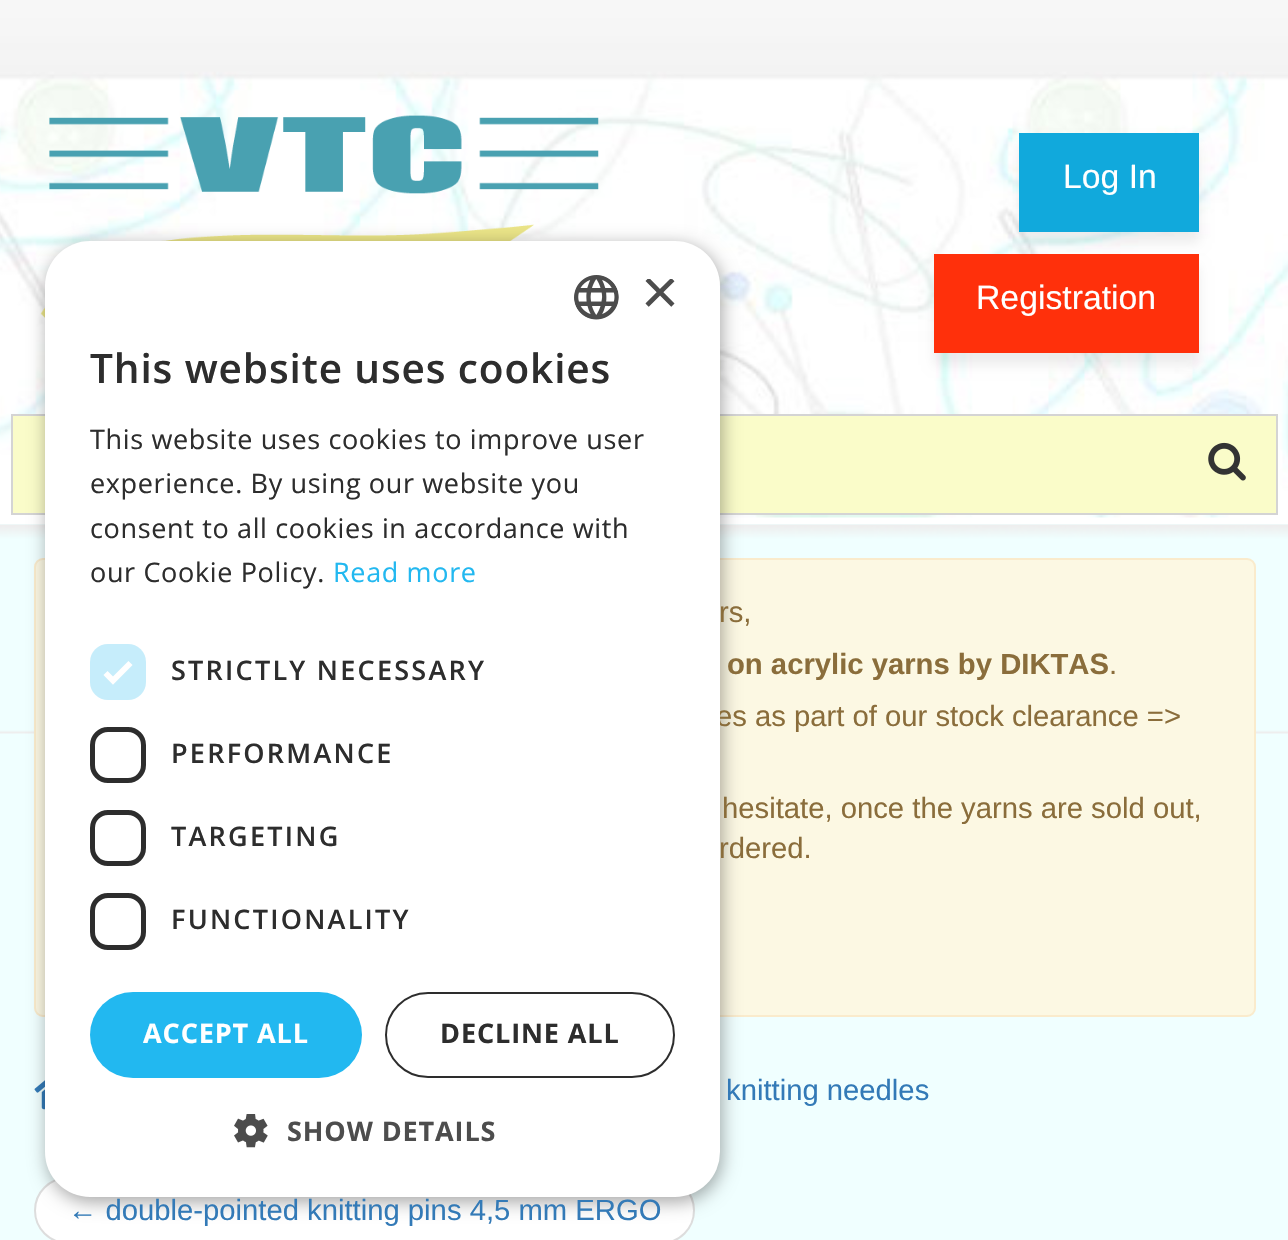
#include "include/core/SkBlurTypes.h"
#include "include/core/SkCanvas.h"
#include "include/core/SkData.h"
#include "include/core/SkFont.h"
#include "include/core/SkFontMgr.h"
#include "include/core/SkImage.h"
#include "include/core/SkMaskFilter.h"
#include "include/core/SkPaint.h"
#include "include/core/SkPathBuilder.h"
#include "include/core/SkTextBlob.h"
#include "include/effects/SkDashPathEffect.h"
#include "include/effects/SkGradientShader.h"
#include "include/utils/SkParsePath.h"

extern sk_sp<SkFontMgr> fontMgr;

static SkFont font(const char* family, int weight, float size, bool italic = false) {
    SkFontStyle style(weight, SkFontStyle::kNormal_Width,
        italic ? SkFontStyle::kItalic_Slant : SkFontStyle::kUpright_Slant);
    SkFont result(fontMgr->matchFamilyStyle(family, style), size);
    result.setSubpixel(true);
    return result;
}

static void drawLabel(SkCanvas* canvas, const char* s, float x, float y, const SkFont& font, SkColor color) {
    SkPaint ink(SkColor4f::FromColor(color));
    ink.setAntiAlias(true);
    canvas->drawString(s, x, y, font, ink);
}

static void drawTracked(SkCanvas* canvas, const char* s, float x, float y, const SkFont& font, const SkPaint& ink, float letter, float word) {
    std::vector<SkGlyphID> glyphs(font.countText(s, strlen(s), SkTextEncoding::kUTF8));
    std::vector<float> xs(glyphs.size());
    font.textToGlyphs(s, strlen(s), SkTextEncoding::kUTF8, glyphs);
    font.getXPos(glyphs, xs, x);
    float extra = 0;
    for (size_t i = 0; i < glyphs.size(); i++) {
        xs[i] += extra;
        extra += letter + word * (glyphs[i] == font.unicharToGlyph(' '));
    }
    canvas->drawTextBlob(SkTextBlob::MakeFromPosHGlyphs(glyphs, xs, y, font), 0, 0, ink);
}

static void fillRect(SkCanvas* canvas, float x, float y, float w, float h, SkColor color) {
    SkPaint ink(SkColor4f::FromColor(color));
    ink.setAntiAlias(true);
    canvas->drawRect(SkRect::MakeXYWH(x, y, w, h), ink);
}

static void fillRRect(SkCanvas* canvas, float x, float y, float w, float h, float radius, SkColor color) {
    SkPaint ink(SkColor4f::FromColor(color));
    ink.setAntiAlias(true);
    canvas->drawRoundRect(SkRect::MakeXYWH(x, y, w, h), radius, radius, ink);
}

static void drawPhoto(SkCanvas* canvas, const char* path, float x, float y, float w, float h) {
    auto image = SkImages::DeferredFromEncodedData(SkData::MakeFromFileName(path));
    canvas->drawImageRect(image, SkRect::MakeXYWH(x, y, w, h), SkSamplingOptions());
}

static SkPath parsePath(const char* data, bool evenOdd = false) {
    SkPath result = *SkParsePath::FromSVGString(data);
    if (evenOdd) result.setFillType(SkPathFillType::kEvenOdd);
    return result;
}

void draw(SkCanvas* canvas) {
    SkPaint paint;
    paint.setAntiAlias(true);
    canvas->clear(0xFFF0FFFF);
    fillRect(canvas, 0, 517, 1288, 7, 0xFFFFFFFF);
    drawPhoto(canvas, "assets/img1.png", 0, 0, 1288, 518);
    drawPhoto(canvas, "assets/img2.png", 40, 115, 559, 203);
    paint.setColor(0x12000000);
    paint.setMaskFilter(SkMaskFilter::MakeBlur(kNormal_SkBlurStyle, 5.5f));
    canvas->drawRect(SkRect::MakeXYWH(1019, 144, 180, 99), paint);
    paint.setMaskFilter(nullptr);
    fillRect(canvas, 1019, 133, 180, 99, 0xFF11A9DC);
    SkFont font1 = font("Liberation Sans", 400, 33.75f);
    drawLabel(canvas, "Log In", 1063, 188, font1, 0xFFFFFFFF);
    paint.setMaskFilter(SkMaskFilter::MakeBlur(kNormal_SkBlurStyle, 5.5f));
    canvas->drawRect(SkRect::MakeXYWH(934, 266, 265, 99), paint);
    paint.setMaskFilter(nullptr);
    fillRect(canvas, 934, 254, 265, 99, 0xFFFF300B);
    drawLabel(canvas, "Registration", 976, 309, font1, 0xFFFFFFFF);
    fillRect(canvas, 13, 416, 1263, 97, 0xFFFAFCC9);
    fillRect(canvas, 11, 414, 1267, 2, 0xFFD4D4D4);
    fillRect(canvas, 1276, 414, 2, 101, 0xFFD4D4D4);
    fillRect(canvas, 11, 513, 1267, 2, 0xFFD4D4D4);
    drawPhoto(canvas, "assets/img3.png", 1208, 442, 38, 39);
    fillRect(canvas, 11, 414, 2, 101, 0xFFD4D4D4);
    drawPhoto(canvas, "assets/img6.png", 0, 524, 1288, 210);
    paint.setColor(0xFFFCF8E3);
    canvas->drawRoundRect(SkRect::MakeXYWH(35, 559, 1220, 457), 8, 8, paint);
    paint.setStroke(true);
    paint.setStrokeWidth(2);
    paint.setColor(0xFFFAEBCC);
    canvas->drawRoundRect(SkRect::MakeXYWH(35, 559, 1220, 457), 8, 8, paint);
    drawPhoto(canvas, "assets/img7.png", 34, 1080, 11, 30);
    paint.setStroke(false);
    paint.setColor(0xFFFFFFFF);
    canvas->drawRoundRect(SkRect::MakeXYWH(35, 1178, 659, 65), 32.5f, 32.5f, paint);
    paint.setStroke(true);
    paint.setColor(0xFFDDDDDD);
    canvas->drawRoundRect(SkRect::MakeXYWH(35, 1178, 659, 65), 32.5f, 32.5f, paint);
    paint.setStroke(false);
    paint.setColor(0x59000000);
    paint.setMaskFilter(SkMaskFilter::MakeBlur(kNormal_SkBlurStyle, 9));
    canvas->drawRoundRect(SkRect::MakeXYWH(47, 245, 675, 957), 45, 45, paint);
    paint.setMaskFilter(nullptr);
    SkFont font2 = font("Liberation Sans", 400, 29.25f);
    drawLabel(canvas, "es as part of our stock clearance =>", 716, 726, font2, 0xFF8A6D3B);
    fillRRect(canvas, 45, 241, 675, 956, 45, 0xFFFFFFFF);
    drawPhoto(canvas, "assets/img4.png", 574, 275, 45, 45);
    canvas->save();
    canvas->clipRect(SkRect::MakeXYWH(641, 279, 34, 34));
    SkFont font3 = font("Liberation Sans", 400, 65);
    drawLabel(canvas, "×", 641, 314, font3, 0xFF4D4D4D);
    canvas->restore();
    SkFont font4 = font("Open Sans", 600, 40.5f);
    paint.setColor(0xFF2D2D2D);
    drawTracked(canvas, "This website uses cookies", 90, 383, font4, paint, 0.9f, 0);
    SkFont font5 = font("Open Sans", 400, 27);
    drawTracked(canvas, "This website uses cookies to improve user", 90, 449, font5, paint, 0.65f, 0);
    drawTracked(canvas, "experience. By using our website you", 90, 493, font5, paint, 0.65f, 0);
    drawTracked(canvas, "consent to all cookies in accordance with", 90, 538, font5, paint, 0.65f, 0);
    drawTracked(canvas, "our Cookie Policy.", 90, 582, font5, paint, 0.65f, 0);
    paint.setColor(0xFF22B8F0);
    drawTracked(canvas, "Read more", 333, 582, font5, paint, 0.65f, 0);
    fillRRect(canvas, 90, 644, 56, 56, 18, 0xFFC6EDFB);
    paint.setStroke(true);
    paint.setStrokeWidth(5.9f);
    paint.setColor(0xFFFFFFFF);
    canvas->drawPath(parsePath("M105.5 673L113 680.5L130.5 663"), paint);
    SkFont font6 = font("Open Sans", 600, 27);
    paint.setStroke(false);
    paint.setColor(0xFF2D2D2D);
    drawTracked(canvas, "STRICTLY NECESSARY", 171, 680, font6, paint, 2.25f, 0);
    paint.setStroke(true);
    paint.setStrokeWidth(5);
    canvas->drawRoundRect(SkRect::MakeXYWH(92.5f, 729.5f, 51, 51), 15.5f, 15.5f, paint);
    paint.setStroke(false);
    drawTracked(canvas, "PERFORMANCE", 171, 763, font6, paint, 2.25f, 0);
    paint.setStroke(true);
    canvas->drawRoundRect(SkRect::MakeXYWH(92.5f, 812.5f, 51, 51), 15.5f, 15.5f, paint);
    paint.setStroke(false);
    drawTracked(canvas, "TARGETING", 171, 846, font6, paint, 2.25f, 0);
    paint.setStroke(true);
    canvas->drawRoundRect(SkRect::MakeXYWH(92.5f, 895.5f, 51, 52), 15.5f, 15.5f, paint);
    paint.setStroke(false);
    drawTracked(canvas, "FUNCTIONALITY", 171, 929, font6, paint, 2.25f, 0);
    fillRRect(canvas, 90, 992, 272, 86, 43, 0xFF22B8F0);
    SkFont font7 = font("Open Sans", 700, 27);
    paint.setColor(0xFFFFFFFF);
    drawTracked(canvas, "ACCEPT ALL", 143, 1043, font7, paint, 0.9f, 0);
    paint.setStroke(true);
    paint.setStrokeWidth(2);
    paint.setColor(0xFF2D2D2D);
    canvas->drawRoundRect(SkRect::MakeXYWH(386, 993, 288, 84), 42, 42, paint);
    paint.setStroke(false);
    drawTracked(canvas, "DECLINE ALL", 440, 1043, font7, paint, 0.9f, 0);
    drawPhoto(canvas, "assets/img5.png", 234, 1114, 34, 34);
    paint.setColor(0xFF4D4D4D);
    drawTracked(canvas, "SHOW DETAILS", 287, 1141, font7, paint, 0.9f, 0);
    drawLabel(canvas, "rs,", 719, 622, font2, 0xFF8A6D3B);
    SkFont font8 = font("Liberation Sans", 700, 29.25f);
    drawLabel(canvas, "on acrylic yarns by DIKTAS", 727, 674, font8, 0xFF8A6D3B);
    drawLabel(canvas, ".", 1109, 674, font2, 0xFF8A6D3B);
    drawLabel(canvas, "hesitate, once the yarns are sold out,", 722, 818, font2, 0xFF8A6D3B);
    drawLabel(canvas, "rdered.", 719, 858, font2, 0xFF8A6D3B);
    drawLabel(canvas, "knitting needles", 726, 1100, font2, 0xFF337AB7);
    drawLabel(canvas, "← double-pointed knitting pins 4,5 mm ERGO", 68, 1220, font2, 0xFF337AB7);
}
